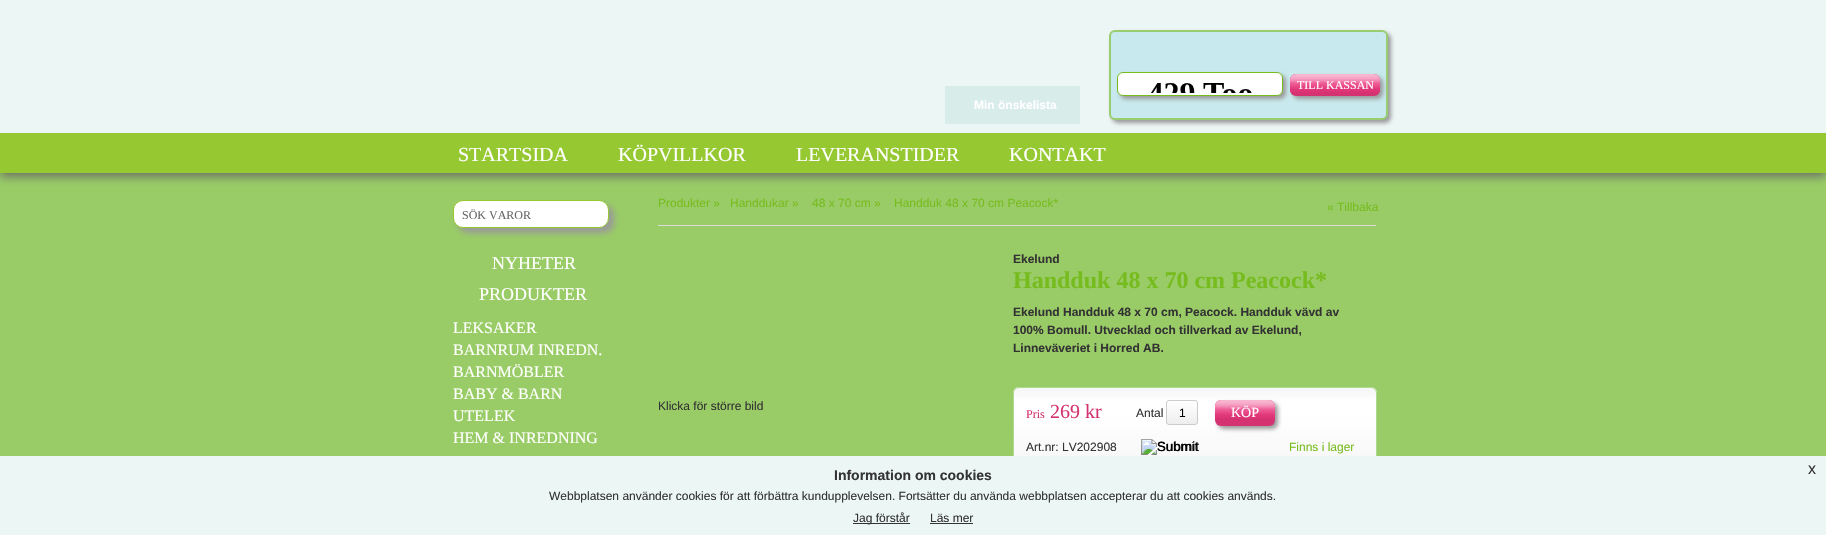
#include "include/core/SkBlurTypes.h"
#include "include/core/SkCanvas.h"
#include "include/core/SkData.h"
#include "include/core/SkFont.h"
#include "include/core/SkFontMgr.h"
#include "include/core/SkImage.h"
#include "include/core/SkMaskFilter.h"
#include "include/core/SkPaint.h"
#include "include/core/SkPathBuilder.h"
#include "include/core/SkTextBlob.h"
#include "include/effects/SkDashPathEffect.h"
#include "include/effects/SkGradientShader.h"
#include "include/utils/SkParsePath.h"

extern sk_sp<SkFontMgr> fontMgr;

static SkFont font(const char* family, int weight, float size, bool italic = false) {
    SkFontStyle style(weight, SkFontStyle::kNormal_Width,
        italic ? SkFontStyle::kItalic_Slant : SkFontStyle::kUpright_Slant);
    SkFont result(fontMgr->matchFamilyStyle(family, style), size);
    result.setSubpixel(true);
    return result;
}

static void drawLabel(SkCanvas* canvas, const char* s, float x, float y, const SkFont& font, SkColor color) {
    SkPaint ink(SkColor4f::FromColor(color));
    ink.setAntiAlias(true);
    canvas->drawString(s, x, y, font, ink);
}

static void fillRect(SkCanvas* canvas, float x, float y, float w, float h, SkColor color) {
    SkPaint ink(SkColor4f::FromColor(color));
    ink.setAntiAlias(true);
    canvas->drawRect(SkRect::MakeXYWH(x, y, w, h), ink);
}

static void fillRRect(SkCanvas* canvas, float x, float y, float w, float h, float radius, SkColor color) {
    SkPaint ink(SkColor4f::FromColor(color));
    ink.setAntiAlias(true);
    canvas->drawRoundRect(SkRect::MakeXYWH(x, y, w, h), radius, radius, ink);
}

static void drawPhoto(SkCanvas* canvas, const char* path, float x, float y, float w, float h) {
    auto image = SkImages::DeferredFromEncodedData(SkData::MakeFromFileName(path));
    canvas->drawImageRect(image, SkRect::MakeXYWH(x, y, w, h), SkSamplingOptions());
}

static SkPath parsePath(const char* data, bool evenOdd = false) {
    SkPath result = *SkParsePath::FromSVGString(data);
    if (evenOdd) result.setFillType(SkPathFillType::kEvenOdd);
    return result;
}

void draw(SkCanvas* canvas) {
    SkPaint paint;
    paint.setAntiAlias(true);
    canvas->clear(0xFF99CC66);
    paint.setColor(0xFF666666);
    paint.setMaskFilter(SkMaskFilter::MakeBlur(kNormal_SkBlurStyle, 5));
    canvas->drawRect(SkRect::MakeXYWH(0, 3, 1826, 173), paint);
    paint.setMaskFilter(nullptr);
    fillRect(canvas, 0, 0, 1826, 133, 0xFFECF6F5);
    paint.setColor(0xFF999999);
    paint.setMaskFilter(SkMaskFilter::MakeBlur(kNormal_SkBlurStyle, 2));
    canvas->drawRoundRect(SkRect::MakeXYWH(1112, 33, 279, 90), 6, 6, paint);
    paint.setMaskFilter(nullptr);
    paint.setColor(0xFFC8E9ED);
    canvas->drawRoundRect(SkRect::MakeXYWH(1110, 31, 277, 88), 5, 5, paint);
    paint.setStroke(true);
    paint.setStrokeWidth(2);
    paint.setColor(0xFF99CE70);
    canvas->drawRoundRect(SkRect::MakeXYWH(1110, 31, 277, 88), 5, 5, paint);
    paint.setStroke(false);
    paint.setColor(0xFF999999);
    paint.setMaskFilter(SkMaskFilter::MakeBlur(kNormal_SkBlurStyle, 2));
    canvas->drawRoundRect(SkRect::MakeXYWH(1120, 75, 166, 24), 6, 6, paint);
    paint.setMaskFilter(nullptr);
    paint.setColor(0xFFFFFFFF);
    canvas->drawRoundRect(SkRect::MakeXYWH(1117.5f, 72.5f, 165, 23), 5.5f, 5.5f, paint);
    paint.setStroke(true);
    paint.setStrokeWidth(1);
    paint.setColor(0xFF77BC1F);
    canvas->drawRoundRect(SkRect::MakeXYWH(1117.5f, 72.5f, 165, 23), 5.5f, 5.5f, paint);
    drawPhoto(canvas, "assets/img1.png", 1151, 83, 101, 10);
    paint.setStroke(false);
    paint.setColor(0xFF999999);
    paint.setMaskFilter(SkMaskFilter::MakeBlur(kNormal_SkBlurStyle, 2));
    canvas->drawRoundRect(SkRect::MakeXYWH(1293, 77, 90, 22), 6, 6, paint);
    paint.setMaskFilter(nullptr);
    fillRRect(canvas, 1290, 74, 90, 22, 6, 0xFFD43270);
    drawPhoto(canvas, "assets/img2.png", 1290, 74, 90, 18);
    SkFont font1 = font("Liberation Serif", 400, 12);
    drawLabel(canvas, "TILL KASSAN", 1297, 89, font1, 0xFFFFFFFF);
    fillRect(canvas, 945, 86, 135, 38, 0xFFD8ECEA);
    SkFont font2 = font("Liberation Sans", 700, 12);
    drawLabel(canvas, "Min önskelista", 974, 109, font2, 0xFFFFFFFF);
    fillRect(canvas, 0, 133, 1826, 40, 0xFF96C832);
    SkFont font3 = font("Liberation Serif", 400, 20);
    drawLabel(canvas, "STARTSIDA", 458, 161, font3, 0xFFFFFFFF);
    drawLabel(canvas, "KÖPVILLKOR", 618, 161, font3, 0xFFFFFFFF);
    drawLabel(canvas, "LEVERANSTIDER", 796, 161, font3, 0xFFFFFFFF);
    drawLabel(canvas, "KONTAKT", 1009, 161, font3, 0xFFFFFFFF);
    paint.setMaskFilter(SkMaskFilter::MakeBlur(kNormal_SkBlurStyle, 3));
    canvas->drawRoundRect(SkRect::MakeXYWH(458, 205, 156, 28), 10, 10, paint);
    paint.setMaskFilter(nullptr);
    paint.setColor(0xFFFFFFFF);
    canvas->drawRoundRect(SkRect::MakeXYWH(453.5f, 200.5f, 155, 27), 9.5f, 9.5f, paint);
    paint.setStroke(true);
    paint.setColor(0xFF96C832);
    canvas->drawRoundRect(SkRect::MakeXYWH(453.5f, 200.5f, 155, 27), 9.5f, 9.5f, paint);
    drawLabel(canvas, "SÖK VAROR", 462, 219, font1, 0xFF666666);
    SkFont font4 = font("Liberation Serif", 400, 18);
    drawLabel(canvas, "NYHETER", 492, 269, font4, 0xFFFFFFFF);
    drawLabel(canvas, "PRODUKTER", 479, 300, font4, 0xFFFFFFFF);
    SkFont font5 = font("Liberation Serif", 400, 16);
    drawLabel(canvas, "LEKSAKER", 453, 333, font5, 0xFFFFFFFF);
    drawLabel(canvas, "BARNRUM INREDN.", 453, 355, font5, 0xFFFFFFFF);
    drawLabel(canvas, "BARNMÖBLER", 453, 377, font5, 0xFFFFFFFF);
    drawLabel(canvas, "BABY & BARN", 453, 399, font5, 0xFFFFFFFF);
    drawLabel(canvas, "UTELEK", 453, 421, font5, 0xFFFFFFFF);
    drawLabel(canvas, "HEM & INREDNING", 453, 443, font5, 0xFFFFFFFF);
    SkFont font6 = font("Liberation Sans", 400, 12);
    drawLabel(canvas, "Produkter »", 658, 207, font6, 0xFF77BC1F);
    drawLabel(canvas, "Handdukar »", 730, 207, font6, 0xFF77BC1F);
    drawLabel(canvas, "48 x 70 cm »", 812, 207, font6, 0xFF77BC1F);
    drawLabel(canvas, "Handduk 48 x 70 cm Peacock*", 894, 207, font6, 0xFF77BC1F);
    drawLabel(canvas, "« Tillbaka", 1327, 211, font6, 0xFF77BC1F);
    fillRect(canvas, 658, 225, 718, 1, 0xFFDBDBDB);
    drawLabel(canvas, "Klicka för större bild", 658, 410, font6, 0xFF333333);
    drawLabel(canvas, "Ekelund", 1013, 263, font2, 0xFF333333);
    SkFont font7 = font("Liberation Serif", 700, 24);
    drawLabel(canvas, "Handduk 48 x 70 cm Peacock*", 1013, 288, font7, 0xFF77BC1F);
    drawLabel(canvas, "Ekelund Handduk 48 x 70 cm, Peacock. Handduk vävd av", 1013, 316, font2, 0xFF333333);
    drawLabel(canvas, "100% Bomull. Utvecklad och tillverkad av Ekelund,", 1013, 334, font2, 0xFF333333);
    drawLabel(canvas, "Linneväveriet i Horred AB.", 1013, 352, font2, 0xFF333333);
    drawPhoto(canvas, "assets/img3.png", 1013, 387, 364, 69);
    paint.setColor(0xFFAEDA8D);
    canvas->drawRoundRect(SkRect::MakeXYWH(1013.5f, 387.5f, 363, 80), 5.5f, 5.5f, paint);
    drawLabel(canvas, "Pris", 1026, 418, font1, 0xFFD43270);
    drawLabel(canvas, "269 kr", 1050, 418, font3, 0xFFD43270);
    drawLabel(canvas, "Antal", 1136, 417, font6, 0xFF333333);
    canvas->save();
    canvas->clipPath(parsePath("M1169 400H1195C1196.5 400 1198 401.5 1198 403V422C1198 423.5 1196.5 425 1195 425H1169C1167.5 425 1166 423.5 1166 422V403C1166 401.5 1167.5 400 1169 400Z"), true);
    paint.setStroke(false);
    {
        const SkColor colors[] = {0xFFFFFFFF, 0xFFEEEEEE};
        const float stops[] = {0, 1};
        const SkPoint ends[] = {{1167, 401}, {1167, 424}};
        paint.setShader(SkGradientShader::MakeLinear(ends, colors, stops, 2, SkTileMode::kClamp));
        paint.setAlpha(255);
    }
    canvas->drawRect(SkRect::MakeXYWH(1166, 401, 32, 23), paint);
    canvas->restore();
    paint.setStroke(true);
    paint.setShader(nullptr);
    paint.setColor(0xFFCCCCCC);
    canvas->drawRoundRect(SkRect::MakeXYWH(1166.5f, 400.5f, 31, 24), 2.5f, 2.5f, paint);
    drawLabel(canvas, "1", 1179, 417, font6, 0xFF000000);
    paint.setStroke(false);
    paint.setColor(0xFF999999);
    paint.setMaskFilter(SkMaskFilter::MakeBlur(kNormal_SkBlurStyle, 2));
    canvas->drawRoundRect(SkRect::MakeXYWH(1218, 403, 60, 26), 6, 6, paint);
    paint.setMaskFilter(nullptr);
    fillRRect(canvas, 1215, 400, 60, 26, 6, 0xFFD43270);
    drawPhoto(canvas, "assets/img4.png", 1215, 400, 60, 18);
    SkFont font8 = font("Liberation Serif", 400, 14);
    drawLabel(canvas, "KÖP", 1231, 417, font8, 0xFFFFFFFF);
    drawLabel(canvas, "Art.nr: LV202908", 1026, 451, font6, 0xFF333333);
    drawPhoto(canvas, "assets/img5.png", 1141, 439, 57, 16);
    SkFont font9 = font("Liberation Sans", 400, 13.5f);
    drawLabel(canvas, "Submit", 1157, 451, font9, 0xFF000000);
    drawLabel(canvas, "Finns i lager", 1289, 451, font6, 0xFF77BC1F);
    fillRect(canvas, 0, 456, 1826, 79, 0xFFECF6F5);
    SkFont font10 = font("Liberation Sans", 700, 14);
    drawLabel(canvas, "Information om cookies", 834, 480, font10, 0xFF333333);
    SkFont font11 = font("Liberation Sans", 400, 16);
    drawLabel(canvas, "x", 1808, 474, font11, 0xFF333333);
    drawLabel(canvas, "Webbplatsen använder cookies för att förbättra kundupplevelsen. Fortsätter du använda webbplatsen accepterar du att cookies används.", 549, 500, font6, 0xFF333333);
    fillRect(canvas, 853, 523, 57, 1, 0xFF333333);
    drawLabel(canvas, "Jag förstår", 853, 522, font6, 0xFF333333);
    drawLabel(canvas, "Läs mer", 930, 522, font6, 0xFF333333);
    fillRect(canvas, 930, 523, 43, 1, 0xFF333333);
}
